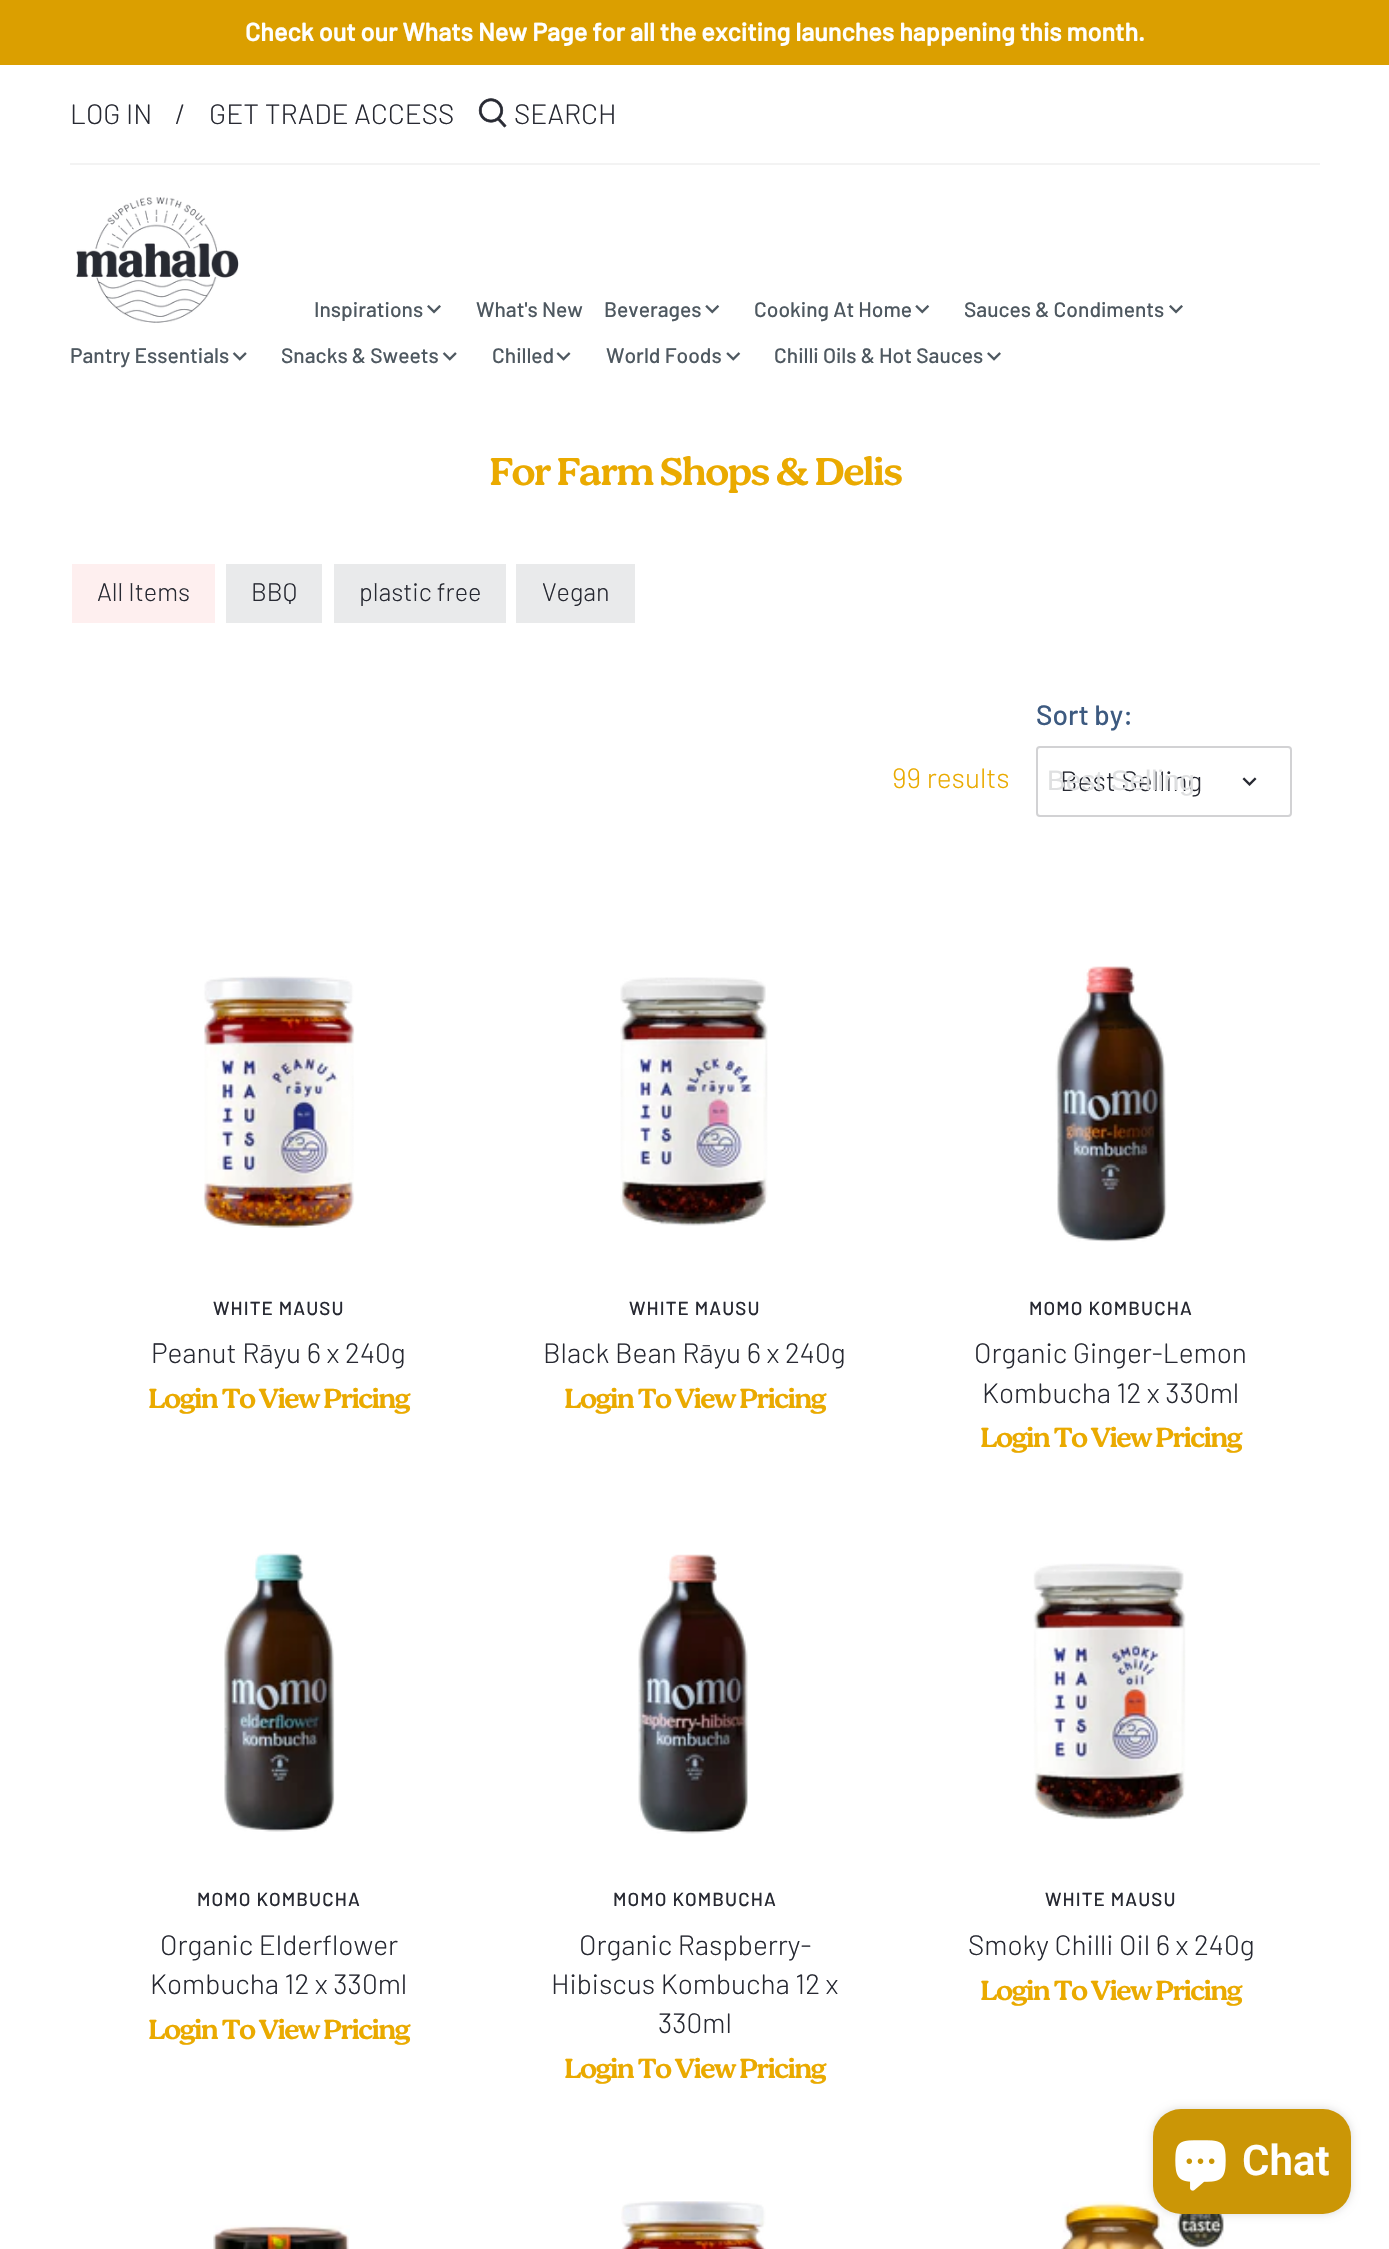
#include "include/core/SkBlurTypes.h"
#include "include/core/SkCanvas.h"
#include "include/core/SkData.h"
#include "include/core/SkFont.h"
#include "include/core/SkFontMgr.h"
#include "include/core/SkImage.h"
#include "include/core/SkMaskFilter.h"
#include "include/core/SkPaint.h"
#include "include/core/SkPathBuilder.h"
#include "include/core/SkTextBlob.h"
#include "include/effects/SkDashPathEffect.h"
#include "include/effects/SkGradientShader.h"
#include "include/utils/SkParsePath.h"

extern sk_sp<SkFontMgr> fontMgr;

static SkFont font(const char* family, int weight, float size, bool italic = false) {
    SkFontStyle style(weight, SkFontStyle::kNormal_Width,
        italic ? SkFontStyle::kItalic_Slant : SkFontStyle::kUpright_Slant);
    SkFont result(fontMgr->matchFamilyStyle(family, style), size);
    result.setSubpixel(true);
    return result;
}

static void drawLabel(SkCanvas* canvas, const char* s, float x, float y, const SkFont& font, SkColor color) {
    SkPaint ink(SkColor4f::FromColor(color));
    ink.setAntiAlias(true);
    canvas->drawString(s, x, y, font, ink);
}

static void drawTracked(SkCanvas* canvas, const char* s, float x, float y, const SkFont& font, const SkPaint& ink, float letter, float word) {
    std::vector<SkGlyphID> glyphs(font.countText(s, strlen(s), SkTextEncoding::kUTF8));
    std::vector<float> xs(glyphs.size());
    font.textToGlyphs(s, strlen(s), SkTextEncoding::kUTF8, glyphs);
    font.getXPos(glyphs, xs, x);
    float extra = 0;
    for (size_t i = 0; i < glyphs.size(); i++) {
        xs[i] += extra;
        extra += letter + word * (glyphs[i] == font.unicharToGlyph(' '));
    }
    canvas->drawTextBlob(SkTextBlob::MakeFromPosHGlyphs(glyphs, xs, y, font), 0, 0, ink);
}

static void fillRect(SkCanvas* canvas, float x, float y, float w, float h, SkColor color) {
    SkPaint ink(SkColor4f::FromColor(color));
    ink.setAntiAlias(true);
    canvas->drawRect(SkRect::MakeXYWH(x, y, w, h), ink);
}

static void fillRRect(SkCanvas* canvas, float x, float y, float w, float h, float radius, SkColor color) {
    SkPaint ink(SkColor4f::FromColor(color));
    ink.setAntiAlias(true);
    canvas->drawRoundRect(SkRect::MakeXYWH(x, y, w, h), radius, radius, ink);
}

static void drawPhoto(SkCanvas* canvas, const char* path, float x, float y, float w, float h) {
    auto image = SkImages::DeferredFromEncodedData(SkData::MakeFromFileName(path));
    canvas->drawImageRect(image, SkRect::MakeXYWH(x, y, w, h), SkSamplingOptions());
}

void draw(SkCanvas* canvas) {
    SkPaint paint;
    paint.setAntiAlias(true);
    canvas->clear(0xFFFFFFFF);
    fillRect(canvas, 0, 0, 1389, 65, 0xFFDB9F00);
    SkFont font1 = font("Barlow", 700, 25.2f);
    drawLabel(canvas, "Check out our Whats New Page for all the exciting launches happening this month.", 245, 41, font1, 0xFFFFFFFF);
    SkFont font2 = font("Barlow", 300, 28);
    drawLabel(canvas, "LOG IN", 70, 124, font2, 0xFF272932);
    drawLabel(canvas, "/", 175, 124, font2, 0xFF272932);
    drawLabel(canvas, "GET TRADE ACCESS", 209, 124, font2, 0xFF272932);
    drawPhoto(canvas, "assets/img1.png", 478, 98, 29, 30);
    drawLabel(canvas, "SEARCH", 514, 124, font2, 0xFF272932);
    fillRect(canvas, 70, 163, 1250, 2, 0xFFF3F3F3);
    drawPhoto(canvas, "assets/img2.png", 76, 197, 163, 126);
    SkFont font3 = font("Barlow", 500, 21);
    drawLabel(canvas, "Inspirations", 314, 317, font3, 0xFF4E5860);
    drawPhoto(canvas, "assets/img3.png", 427, 305, 14, 9);
    drawLabel(canvas, "What's New", 476, 317, font3, 0xFF4E5860);
    drawLabel(canvas, "Beverages", 604, 317, font3, 0xFF4E5860);
    drawPhoto(canvas, "assets/img4.png", 705, 305, 15, 9);
    drawLabel(canvas, "Cooking At Home", 754, 317, font3, 0xFF4E5860);
    drawPhoto(canvas, "assets/img4.png", 915, 305, 15, 9);
    drawLabel(canvas, "Sauces & Condiments", 964, 317, font3, 0xFF4E5860);
    drawPhoto(canvas, "assets/img3.png", 1169, 305, 14, 9);
    drawLabel(canvas, "Pantry Essentials", 70, 363, font3, 0xFF4E5860);
    drawPhoto(canvas, "assets/img5.png", 232, 352, 15, 9);
    drawLabel(canvas, "Snacks & Sweets", 281, 363, font3, 0xFF4E5860);
    drawPhoto(canvas, "assets/img5.png", 442, 352, 15, 9);
    drawLabel(canvas, "Chilled", 492, 363, font3, 0xFF4E5860);
    drawPhoto(canvas, "assets/img6.png", 556, 352, 15, 9);
    drawLabel(canvas, "World Foods", 606, 363, font3, 0xFF4E5860);
    drawPhoto(canvas, "assets/img7.png", 726, 352, 15, 9);
    drawLabel(canvas, "Chilli Oils & Hot Sauces", 774, 363, font3, 0xFF4E5860);
    drawPhoto(canvas, "assets/img8.png", 987, 352, 14, 9);
    SkFont font4 = font("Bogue", 600, 39.25f);
    paint.setColor(0xFFEAAA00);
    drawTracked(canvas, "For Farm Shops & Delis", 489, 485, font4, paint, -1.75f, 0);
    fillRect(canvas, 72, 564, 143, 59, 0xFFFEEFEF);
    SkFont font5 = font("Barlow", 300, 25.2f);
    drawLabel(canvas, "All Items", 97, 601, font5, 0xFF272932);
    fillRect(canvas, 226, 564, 96, 59, 0xFFE9EAEB);
    drawLabel(canvas, "BBQ", 251, 601, font5, 0xFF272932);
    fillRect(canvas, 334, 564, 172, 59, 0xFFE9EAEB);
    drawLabel(canvas, "plastic free", 359, 601, font5, 0xFF272932);
    fillRect(canvas, 516, 564, 119, 59, 0xFFE9EAEB);
    drawLabel(canvas, "Vegan", 542, 601, font5, 0xFF272932);
    drawLabel(canvas, "99 results", 892, 788, font2, 0xFFEAAA00);
    SkFont font6 = font("Barlow", 500, 28);
    drawLabel(canvas, "Sort by:", 1036, 725, font6, 0xFF3D5A80);
    paint.setStroke(true);
    paint.setStrokeWidth(2);
    paint.setColor(0xFFD2D2D4);
    canvas->drawRoundRect(SkRect::MakeXYWH(1037, 747, 254, 69), 3, 3, paint);
    drawLabel(canvas, "Best Selling", 1060, 791, font2, 0xFF272932);
    SkFont font7 = font("Liberation Sans", 400, 28);
    drawLabel(canvas, "Best Selling", 1047, 790, font7, 0xFFDFE0E1);
    drawPhoto(canvas, "assets/img9.png", 1242, 777, 15, 9);
    drawPhoto(canvas, "assets/img10.png", 203, 976, 152, 252);
    SkFont font8 = font("Barlow", 500, 18.75f);
    paint.setStroke(false);
    paint.setColor(0xFF272932);
    drawTracked(canvas, "WHITE MAUSU", 213, 1315, font8, paint, 1.1f, 0);
    drawLabel(canvas, "Peanut Rāyu 6 x 240g", 151, 1363, font2, 0xFF272932);
    SkFont font9 = font("Bogue", 600, 28);
    paint.setColor(0xFFEAAA00);
    drawTracked(canvas, "Login To View Pricing", 148, 1408, font9, paint, -1.75f, 0);
    drawPhoto(canvas, "assets/img11.png", 620, 977, 148, 249);
    paint.setColor(0xFF272932);
    drawTracked(canvas, "WHITE MAUSU", 629, 1315, font8, paint, 1.1f, 0);
    drawLabel(canvas, "Black Bean Rāyu 6 x 240g", 543, 1363, font2, 0xFF272932);
    paint.setColor(0xFFEAAA00);
    drawTracked(canvas, "Login To View Pricing", 564, 1408, font9, paint, -1.75f, 0);
    drawPhoto(canvas, "assets/img12.png", 1055, 966, 112, 276);
    paint.setColor(0xFF272932);
    drawTracked(canvas, "MOMO KOMBUCHA", 1029, 1315, font8, paint, 1.1f, 0);
    drawLabel(canvas, "Organic Ginger-Lemon", 974, 1363, font2, 0xFF272932);
    drawLabel(canvas, "Kombucha 12 x 330ml", 982, 1403, font2, 0xFF272932);
    paint.setColor(0xFFEAAA00);
    drawTracked(canvas, "Login To View Pricing", 980, 1447, font9, paint, -1.75f, 0);
    drawPhoto(canvas, "assets/img13.png", 224, 1553, 111, 279);
    paint.setColor(0xFF272932);
    drawTracked(canvas, "MOMO KOMBUCHA", 197, 1906, font8, paint, 1.1f, 0);
    drawLabel(canvas, "Organic Elderflower", 160, 1955, font2, 0xFF272932);
    drawLabel(canvas, "Kombucha 12 x 330ml", 150, 1994, font2, 0xFF272932);
    paint.setColor(0xFFEAAA00);
    drawTracked(canvas, "Login To View Pricing", 148, 2039, font9, paint, -1.75f, 0);
    drawPhoto(canvas, "assets/img14.png", 638, 1554, 110, 280);
    paint.setColor(0xFF272932);
    drawTracked(canvas, "MOMO KOMBUCHA", 613, 1906, font8, paint, 1.1f, 0);
    drawLabel(canvas, "Organic Raspberry-", 579, 1955, font2, 0xFF272932);
    drawLabel(canvas, "Hibiscus Kombucha 12 x", 551, 1994, font2, 0xFF272932);
    drawLabel(canvas, "330ml", 658, 2033, font2, 0xFF272932);
    paint.setColor(0xFFEAAA00);
    drawTracked(canvas, "Login To View Pricing", 564, 2078, font9, paint, -1.75f, 0);
    drawPhoto(canvas, "assets/img15.png", 1033, 1563, 153, 257);
    paint.setColor(0xFF272932);
    drawTracked(canvas, "WHITE MAUSU", 1045, 1906, font8, paint, 1.1f, 0);
    drawLabel(canvas, "Smoky Chilli Oil 6 x 240g", 968, 1955, font2, 0xFF272932);
    paint.setColor(0xFFEAAA00);
    drawTracked(canvas, "Login To View Pricing", 980, 2000, font9, paint, -1.75f, 0);
    drawPhoto(canvas, "assets/img16.png", 213, 2225, 137, 24);
    drawPhoto(canvas, "assets/img17.png", 621, 2201, 145, 48);
    drawPhoto(canvas, "assets/img18.png", 1061, 2198, 163, 51);
    paint.setColor(0x26000000);
    paint.setMaskFilter(SkMaskFilter::MakeBlur(kNormal_SkBlurStyle, 4.5f));
    canvas->drawRoundRect(SkRect::MakeXYWH(1153, 2109, 198, 105), 28, 28, paint);
    paint.setMaskFilter(nullptr);
    fillRRect(canvas, 1153, 2109, 198, 105, 28, 0xFFCB9606);
    drawPhoto(canvas, "assets/img19.png", 1175, 2140, 51, 51);
    SkFont font10 = font("Roboto", 600, 42);
    drawLabel(canvas, "Chat", 1242, 2175, font10, 0xFFFFFFFF);
}
